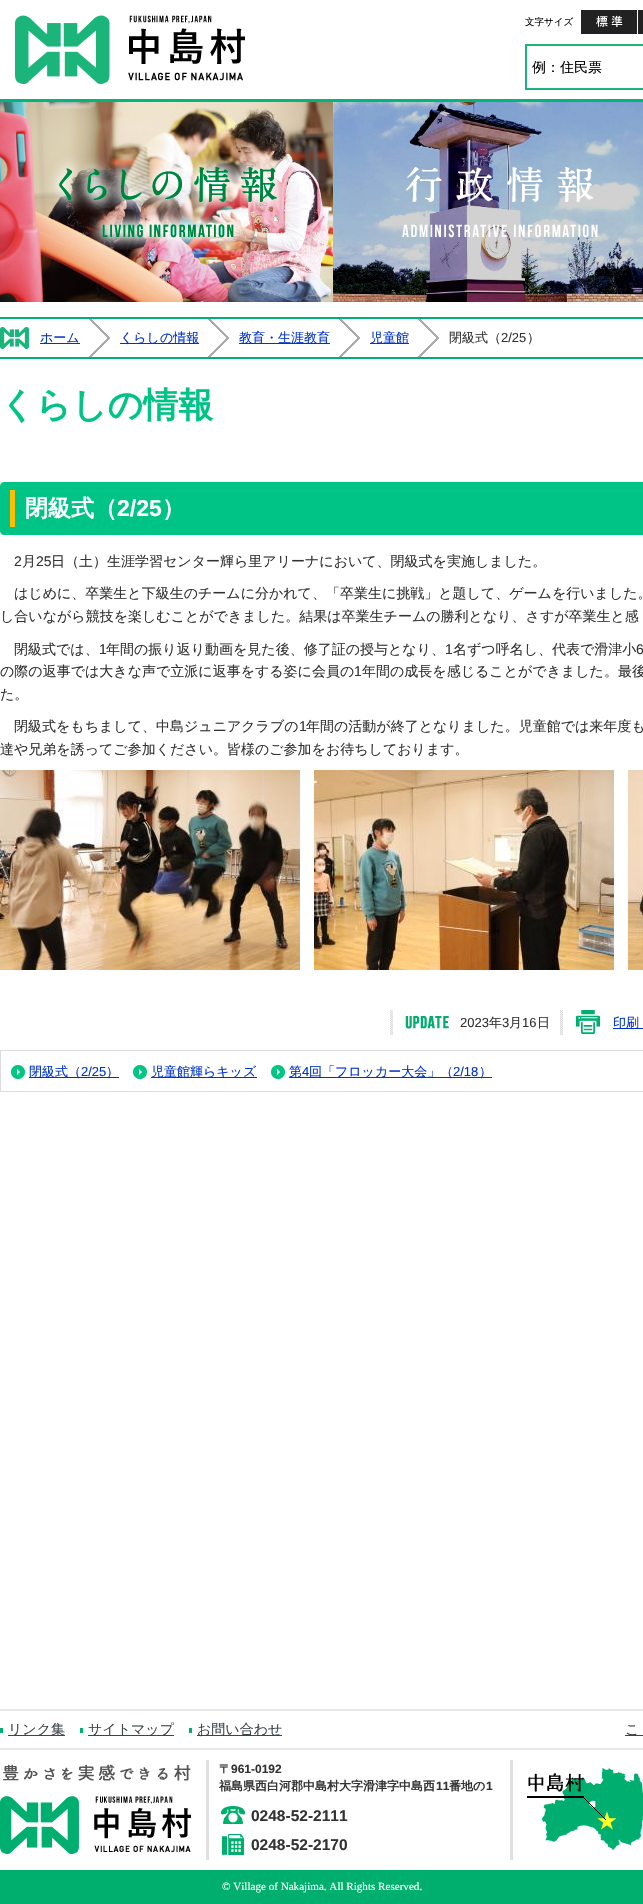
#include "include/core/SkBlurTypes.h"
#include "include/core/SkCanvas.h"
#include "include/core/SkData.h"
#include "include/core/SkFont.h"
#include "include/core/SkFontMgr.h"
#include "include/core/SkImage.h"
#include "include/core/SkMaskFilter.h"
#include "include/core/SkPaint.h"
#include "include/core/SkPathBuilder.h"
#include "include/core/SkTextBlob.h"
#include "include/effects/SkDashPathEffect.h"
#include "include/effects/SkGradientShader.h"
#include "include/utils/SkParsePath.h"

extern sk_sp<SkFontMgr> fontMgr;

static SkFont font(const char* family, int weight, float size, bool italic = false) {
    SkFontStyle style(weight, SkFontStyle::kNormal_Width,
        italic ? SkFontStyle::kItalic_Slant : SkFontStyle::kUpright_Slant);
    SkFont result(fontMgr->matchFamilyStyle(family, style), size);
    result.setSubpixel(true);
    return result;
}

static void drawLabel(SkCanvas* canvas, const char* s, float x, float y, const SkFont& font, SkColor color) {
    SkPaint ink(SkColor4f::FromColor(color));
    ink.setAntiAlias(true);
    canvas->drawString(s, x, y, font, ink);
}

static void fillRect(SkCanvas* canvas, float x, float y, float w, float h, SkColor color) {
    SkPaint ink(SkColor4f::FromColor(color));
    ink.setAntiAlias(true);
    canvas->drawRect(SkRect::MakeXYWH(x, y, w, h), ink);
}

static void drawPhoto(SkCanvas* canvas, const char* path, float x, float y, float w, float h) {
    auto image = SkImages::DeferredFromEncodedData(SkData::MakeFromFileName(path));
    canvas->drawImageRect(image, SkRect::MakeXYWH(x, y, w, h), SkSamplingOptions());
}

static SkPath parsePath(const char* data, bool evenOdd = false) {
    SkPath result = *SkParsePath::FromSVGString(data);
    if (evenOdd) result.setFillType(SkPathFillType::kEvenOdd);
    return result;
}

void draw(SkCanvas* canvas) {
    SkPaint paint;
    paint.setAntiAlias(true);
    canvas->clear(0xFFFFFFFF);
    fillRect(canvas, 0, 99, 643, 3, 0xFF00B67A);
    drawPhoto(canvas, "assets/img1.png", 15, 15, 230, 69);
    SkFont font1 = font("WenQuanYi Zen Hei", 500, 9.5f);
    drawLabel(canvas, "文字サイズ", 525, 25, font1, 0xFF000000);
    drawPhoto(canvas, "assets/img2.png", 581, 10, 56, 24);
    fillRect(canvas, 638, 10, 5, 24, 0xFF222222);
    paint.setStroke(true);
    paint.setStrokeWidth(2);
    paint.setColor(0xFF1BB57C);
    canvas->drawRect(SkRect::MakeXYWH(526, 45, 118, 44), paint);
    SkFont font2 = font("WenQuanYi Zen Hei", 500, 14);
    drawLabel(canvas, "例：住民票", 532, 72, font2, 0xFF000000);
    drawPhoto(canvas, "assets/img3.png", 0, 102, 333, 200);
    drawPhoto(canvas, "assets/img4.png", 48, 154, 239, 96);
    drawPhoto(canvas, "assets/img5.png", 333, 102, 310, 200);
    drawPhoto(canvas, "assets/img6.png", 402, 167, 196, 71);
    drawPhoto(canvas, "assets/img7.png", 0, 327, 29, 22);
    fillRect(canvas, 0, 317, 643, 2, 0xFF00AF73);
    fillRect(canvas, 0, 357, 643, 2, 0xFF00AF73);
    drawPhoto(canvas, "assets/img8.png", 89, 319, 21, 38);
    fillRect(canvas, 40, 343, 40, 1, 0xFF0033CC);
    SkFont font3 = font("WenQuanYi Zen Hei", 500, 13);
    drawLabel(canvas, "ホーム", 40, 342, font3, 0xFF0033CC);
    drawPhoto(canvas, "assets/img8.png", 208, 319, 21, 38);
    fillRect(canvas, 120, 343, 79, 1, 0xFF0033CC);
    drawLabel(canvas, "くらしの情報", 120, 342, font3, 0xFF0033CC);
    drawPhoto(canvas, "assets/img8.png", 339, 319, 21, 38);
    fillRect(canvas, 239, 343, 91, 1, 0xFF0033CC);
    drawLabel(canvas, "教育・生涯教育", 239, 342, font3, 0xFF0033CC);
    drawPhoto(canvas, "assets/img8.png", 418, 319, 21, 38);
    fillRect(canvas, 370, 343, 39, 1, 0xFF0033CC);
    drawLabel(canvas, "児童館", 370, 342, font3, 0xFF0033CC);
    drawLabel(canvas, "閉級式（", 449, 342, font3, 0xFF333333);
    SkFont font4 = font("Liberation Sans", 400, 13);
    drawLabel(canvas, "2/25", 501, 342, font4, 0xFF333333);
    drawLabel(canvas, "）", 527, 342, font3, 0xFF333333);
    SkFont font5 = font("WenQuanYi Zen Hei", 700, 35);
    drawLabel(canvas, "くらしの情報", 0, 417, font5, 0xFF00C485);
    paint.setStroke(false);
    paint.setColor(0xFF00C485);
    canvas->drawPath(parsePath("M4 482H643V535H4C2 535 0 533 0 531V486C0 484 2 482 4 482Z"), paint);
    fillRect(canvas, 10, 490, 5, 37, 0xFFFFBF00);
    SkFont font6 = font("WenQuanYi Zen Hei", 700, 23);
    drawLabel(canvas, "閉級式（", 25, 516, font6, 0xFFFFFFFF);
    SkFont font7 = font("Liberation Sans", 700, 23);
    drawLabel(canvas, "2/25", 117, 516, font7, 0xFFFFFFFF);
    drawLabel(canvas, "）", 162, 516, font6, 0xFFFFFFFF);
    SkFont font8 = font("Liberation Sans", 400, 14);
    drawLabel(canvas, "2", 14, 566, font8, 0xFF333333);
    drawLabel(canvas, "月", 22, 566, font2, 0xFF333333);
    drawLabel(canvas, "25", 36, 566, font8, 0xFF333333);
    drawLabel(canvas, "日（土）生涯学習センター輝ら里アリーナにおいて、閉級式を実施しました。", 51, 566, font2, 0xFF333333);
    drawLabel(canvas, "はじめに、卒業生と下級生のチームに分かれて、「卒業生に挑戦」と題して、ゲームを行いました。", 14, 598, font2, 0xFF333333);
    drawLabel(canvas, "し合いながら競技を楽しむことができました。結果は卒業生チームの勝利となり、さすが卒業生と感", 0, 621, font2, 0xFF333333);
    drawLabel(canvas, "閉級式では、", 14, 654, font2, 0xFF333333);
    drawLabel(canvas, "1", 99, 654, font8, 0xFF333333);
    drawLabel(canvas, "年間の振り返り動画を見た後、修了証の授与となり、", 106, 654, font2, 0xFF333333);
    drawLabel(canvas, "1", 445, 654, font8, 0xFF333333);
    drawLabel(canvas, "名ずつ呼名し、代表で滑津小", 453, 654, font2, 0xFF333333);
    drawLabel(canvas, "6", 636, 654, font8, 0xFF333333);
    drawLabel(canvas, "の際の返事では大きな声で立派に返事をする姿に会員の", 0, 676, font2, 0xFF333333);
    drawLabel(canvas, "1", 354, 676, font8, 0xFF333333);
    drawLabel(canvas, "年間の成長を感じることができました。最後", 362, 676, font2, 0xFF333333);
    drawLabel(canvas, "た。", 0, 699, font2, 0xFF333333);
    drawLabel(canvas, "閉級式をもちまして、中島ジュニアクラブの", 14, 731, font2, 0xFF333333);
    drawLabel(canvas, "1", 299, 731, font8, 0xFF333333);
    drawLabel(canvas, "年間の活動が終了となりました。児童館では来年度も", 306, 731, font2, 0xFF333333);
    drawLabel(canvas, "達や兄弟を誘ってご参加ください。皆様のご参加をお待ちしております。", 0, 754, font2, 0xFF333333);
    drawPhoto(canvas, "assets/img9.png", 0, 770, 300, 200);
    drawPhoto(canvas, "assets/img10.png", 314, 770, 300, 200);
    drawPhoto(canvas, "assets/img11.png", 628, 770, 15, 200);
    drawPhoto(canvas, "assets/img12.png", 390, 1010, 59, 25);
    drawLabel(canvas, "2023", 460, 1027, font4, 0xFF333333);
    drawLabel(canvas, "年", 489, 1027, font3, 0xFF333333);
    drawLabel(canvas, "3", 502, 1027, font4, 0xFF333333);
    drawLabel(canvas, "月", 509, 1027, font3, 0xFF333333);
    drawLabel(canvas, "16", 522, 1027, font4, 0xFF333333);
    drawLabel(canvas, "日", 537, 1027, font3, 0xFF333333);
    drawPhoto(canvas, "assets/img13.png", 560, 1010, 40, 25);
    fillRect(canvas, 613, 1028, 30, 1, 0xFF0033CC);
    drawLabel(canvas, "印刷", 613, 1027, font3, 0xFF0033CC);
    paint.setStroke(true);
    paint.setStrokeWidth(1);
    paint.setColor(0xFFDDDDDD);
    canvas->drawRect(SkRect::MakeXYWH(0.5f, 1050.5f, 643, 41), paint);
    drawPhoto(canvas, "assets/img14.png", 11, 1065, 14, 14);
    fillRect(canvas, 29, 1077, 90, 1, 0xFF0033CC);
    drawLabel(canvas, "閉級式（", 29, 1076, font3, 0xFF0033CC);
    drawLabel(canvas, "2/25", 81, 1076, font4, 0xFF0033CC);
    drawLabel(canvas, "）", 106, 1076, font3, 0xFF0033CC);
    drawPhoto(canvas, "assets/img14.png", 133, 1065, 14, 14);
    fillRect(canvas, 151, 1077, 106, 1, 0xFF0033CC);
    drawLabel(canvas, "児童館輝らキッズ", 151, 1076, font3, 0xFF0033CC);
    drawPhoto(canvas, "assets/img14.png", 271, 1065, 14, 14);
    fillRect(canvas, 289, 1077, 203, 1, 0xFF0033CC);
    drawLabel(canvas, "第", 289, 1076, font3, 0xFF0033CC);
    drawLabel(canvas, "4", 302, 1076, font4, 0xFF0033CC);
    drawLabel(canvas, "回「フロッカー大会」（", 309, 1076, font3, 0xFF0033CC);
    drawLabel(canvas, "2/18", 453, 1076, font4, 0xFF0033CC);
    drawLabel(canvas, "）", 479, 1076, font3, 0xFF0033CC);
    fillRect(canvas, 0, 1709, 643, 2, 0xFFE5E9EB);
    fillRect(canvas, 0, 1748, 643, 2, 0xFFE5E9EB);
    fillRect(canvas, 8, 1735, 57, 1, 0xFF3C4549);
    drawLabel(canvas, "リンク集", 8, 1734, font2, 0xFF3C4549);
    fillRect(canvas, 0, 1728, 3, 5, 0xFF00AF6D);
    fillRect(canvas, 88, 1735, 86, 1, 0xFF3C4549);
    drawLabel(canvas, "サイトマップ", 88, 1734, font2, 0xFF3C4549);
    fillRect(canvas, 80, 1728, 3, 5, 0xFF00AF6D);
    fillRect(canvas, 197, 1735, 85, 1, 0xFF3C4549);
    drawLabel(canvas, "お問い合わせ", 197, 1734, font2, 0xFF3C4549);
    fillRect(canvas, 189, 1728, 3, 5, 0xFF00AF6D);
    fillRect(canvas, 625, 1735, 18, 1, 0xFF3C4549);
    drawLabel(canvas, "こ", 625, 1734, font2, 0xFF3C4549);
    drawPhoto(canvas, "assets/img15.png", 510, 1760, 133, 100);
    drawPhoto(canvas, "assets/img16.png", 0, 1760, 209, 100);
    SkFont font9 = font("WenQuanYi Zen Hei", 700, 12);
    drawLabel(canvas, "〒", 219, 1773, font9, 0xFF333333);
    SkFont font10 = font("Liberation Sans", 700, 12);
    drawLabel(canvas, "961-0192", 231, 1773, font10, 0xFF333333);
    drawLabel(canvas, "福島県西白河郡中島村大字滑津字中島西", 219, 1790, font9, 0xFF333333);
    drawLabel(canvas, "11", 436, 1790, font10, 0xFF333333);
    drawLabel(canvas, "番地の", 449, 1790, font9, 0xFF333333);
    drawLabel(canvas, "1", 486, 1790, font10, 0xFF333333);
    drawPhoto(canvas, "assets/img17.png", 221, 1806, 24, 18);
    SkFont font11 = font("Liberation Sans", 700, 15.5f);
    drawLabel(canvas, "0248-52-2111", 251, 1821, font11, 0xFF333333);
    drawPhoto(canvas, "assets/img18.png", 222, 1834, 22, 21);
    drawLabel(canvas, "0248-52-2170", 251, 1850, font11, 0xFF333333);
    fillRect(canvas, 0, 1870, 643, 34, 0xFF00AF6D);
    SkFont font12 = font("Liberation Serif", 400, 11.1f);
    drawLabel(canvas, "© Village of Nakajima. All Rights Reserved.", 222, 1890, font12, 0xFFFFFFFF);
}
